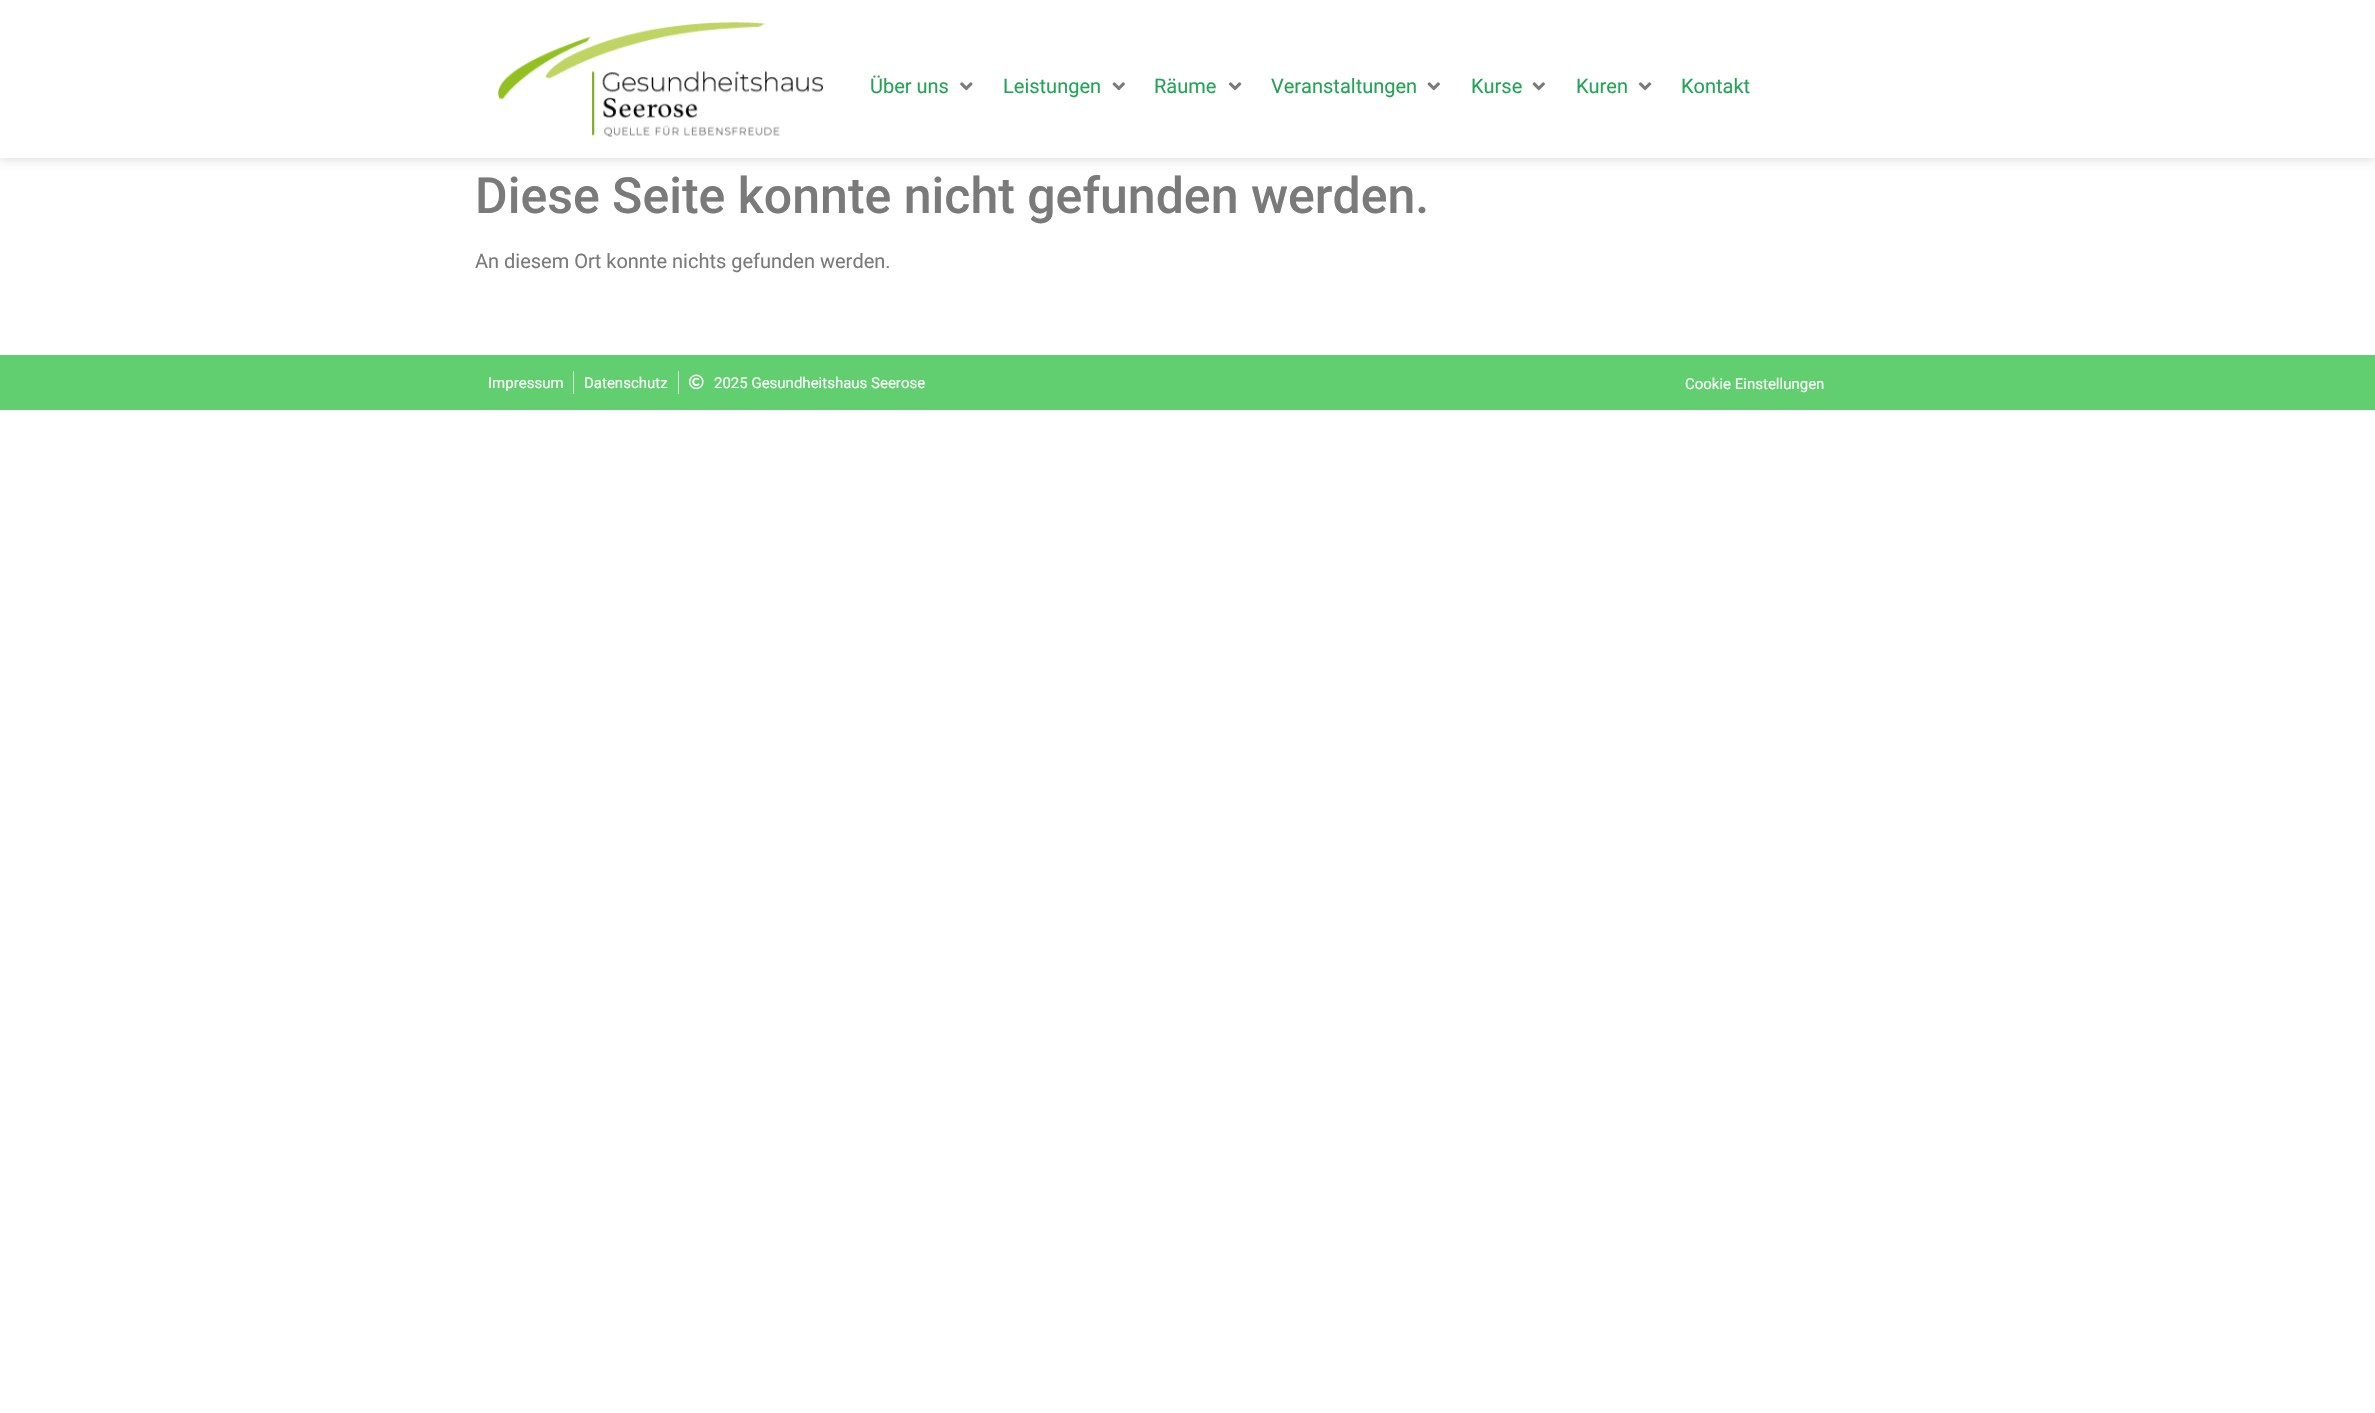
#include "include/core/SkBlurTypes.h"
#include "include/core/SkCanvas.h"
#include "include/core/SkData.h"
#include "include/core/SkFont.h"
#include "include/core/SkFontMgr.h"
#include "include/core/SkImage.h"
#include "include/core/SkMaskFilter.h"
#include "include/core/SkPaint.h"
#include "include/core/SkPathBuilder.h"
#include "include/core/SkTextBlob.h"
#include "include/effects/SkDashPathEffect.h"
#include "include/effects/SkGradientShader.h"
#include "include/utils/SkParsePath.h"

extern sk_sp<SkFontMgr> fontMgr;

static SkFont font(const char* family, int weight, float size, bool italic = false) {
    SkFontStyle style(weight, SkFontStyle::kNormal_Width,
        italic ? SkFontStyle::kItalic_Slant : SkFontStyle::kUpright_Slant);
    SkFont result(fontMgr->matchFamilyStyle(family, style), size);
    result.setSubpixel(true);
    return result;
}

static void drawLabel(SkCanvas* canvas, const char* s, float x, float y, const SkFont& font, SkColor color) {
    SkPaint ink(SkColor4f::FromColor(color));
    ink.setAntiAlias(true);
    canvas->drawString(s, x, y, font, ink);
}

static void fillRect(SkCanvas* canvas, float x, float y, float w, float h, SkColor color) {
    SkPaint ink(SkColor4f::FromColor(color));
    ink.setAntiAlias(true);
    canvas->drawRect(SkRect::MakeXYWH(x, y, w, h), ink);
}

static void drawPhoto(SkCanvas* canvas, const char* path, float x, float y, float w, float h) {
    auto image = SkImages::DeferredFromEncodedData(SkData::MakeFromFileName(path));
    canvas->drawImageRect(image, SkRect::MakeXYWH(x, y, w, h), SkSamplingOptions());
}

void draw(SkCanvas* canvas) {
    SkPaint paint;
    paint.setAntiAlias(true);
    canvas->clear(0xFFFFFFFF);
    paint.setColor(0x2E000000);
    paint.setMaskFilter(SkMaskFilter::MakeBlur(kNormal_SkBlurStyle, 6));
    canvas->drawRect(SkRect::MakeXYWH(0, 0, 2375, 158), paint);
    paint.setMaskFilter(nullptr);
    fillRect(canvas, 0, 0, 2375, 158, 0xFFFFFFFF);
    drawPhoto(canvas, "assets/img1.png", 498, 22, 325, 115);
    SkFont font1 = font("Roboto", 400, 20);
    drawLabel(canvas, "Über uns", 870, 93, font1, 0xFF23A455);
    drawPhoto(canvas, "assets/img2.png", 960, 82, 13, 9);
    drawLabel(canvas, "Leistungen", 1003, 93, font1, 0xFF23A455);
    drawPhoto(canvas, "assets/img3.png", 1112, 82, 13, 9);
    drawLabel(canvas, "Räume", 1154, 93, font1, 0xFF23A455);
    drawPhoto(canvas, "assets/img4.png", 1228, 82, 14, 9);
    drawLabel(canvas, "Veranstaltungen", 1271, 93, font1, 0xFF23A455);
    drawPhoto(canvas, "assets/img3.png", 1427, 82, 13, 9);
    drawLabel(canvas, "Kurse", 1471, 93, font1, 0xFF23A455);
    drawPhoto(canvas, "assets/img3.png", 1532, 82, 13, 9);
    drawLabel(canvas, "Kuren", 1576, 93, font1, 0xFF23A455);
    drawPhoto(canvas, "assets/img4.png", 1638, 82, 14, 9);
    drawLabel(canvas, "Kontakt", 1681, 93, font1, 0xFF23A455);
    SkFont font2 = font("Roboto", 500, 50);
    drawLabel(canvas, "Diese Seite konnte nicht gefunden werden.", 475, 213, font2, 0xFF7A7A7A);
    drawLabel(canvas, "An diesem Ort konnte nichts gefunden werden.", 475, 268, font1, 0xFF7A7A7A);
    fillRect(canvas, 0, 355, 2375, 55, 0xFF61CE70);
    SkFont font3 = font("Roboto", 400, 15);
    drawLabel(canvas, "Impressum", 488, 388, font3, 0xFFFFFFFF);
    fillRect(canvas, 573, 371, 1, 23, 0xFFDDDDDD);
    drawLabel(canvas, "Datenschutz", 584, 388, font3, 0xFFFFFFFF);
    fillRect(canvas, 678, 371, 1, 23, 0xFFDDDDDD);
    drawPhoto(canvas, "assets/img5.png", 689, 374, 15, 16);
    drawLabel(canvas, "2025 Gesundheitshaus Seerose", 714, 388, font3, 0xFFFFFFFF);
    drawLabel(canvas, "Cookie Einstellungen", 1685, 389, font3, 0xFFFFFFFF);
}
